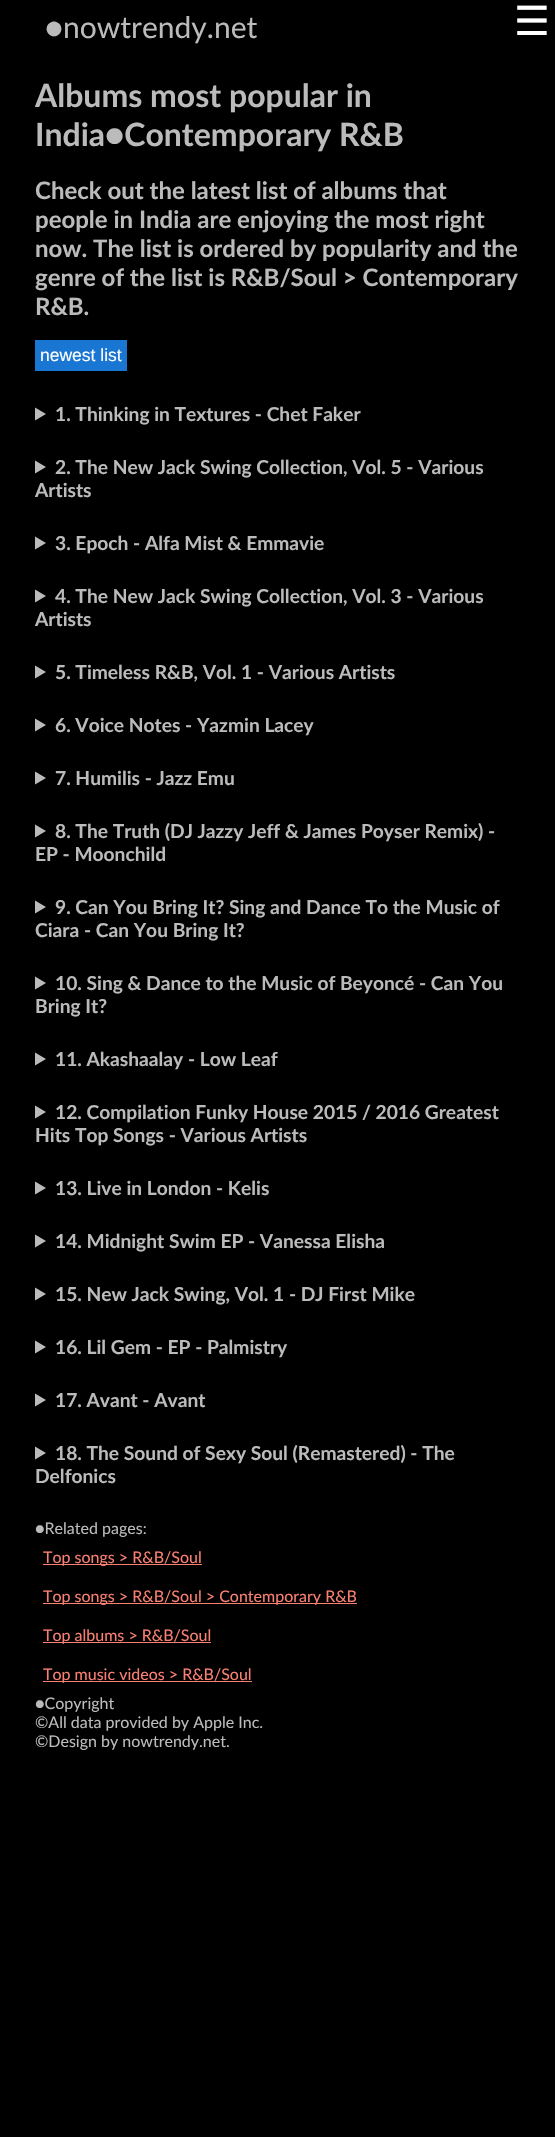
#include "include/core/SkBlurTypes.h"
#include "include/core/SkCanvas.h"
#include "include/core/SkData.h"
#include "include/core/SkFont.h"
#include "include/core/SkFontMgr.h"
#include "include/core/SkImage.h"
#include "include/core/SkMaskFilter.h"
#include "include/core/SkPaint.h"
#include "include/core/SkPathBuilder.h"
#include "include/core/SkTextBlob.h"
#include "include/effects/SkDashPathEffect.h"
#include "include/effects/SkGradientShader.h"
#include "include/utils/SkParsePath.h"

extern sk_sp<SkFontMgr> fontMgr;

static SkFont font(const char* family, int weight, float size, bool italic = false) {
    SkFontStyle style(weight, SkFontStyle::kNormal_Width,
        italic ? SkFontStyle::kItalic_Slant : SkFontStyle::kUpright_Slant);
    SkFont result(fontMgr->matchFamilyStyle(family, style), size);
    result.setSubpixel(true);
    return result;
}

static void drawLabel(SkCanvas* canvas, const char* s, float x, float y, const SkFont& font, SkColor color) {
    SkPaint ink(SkColor4f::FromColor(color));
    ink.setAntiAlias(true);
    canvas->drawString(s, x, y, font, ink);
}

static void fillRect(SkCanvas* canvas, float x, float y, float w, float h, SkColor color) {
    SkPaint ink(SkColor4f::FromColor(color));
    ink.setAntiAlias(true);
    canvas->drawRect(SkRect::MakeXYWH(x, y, w, h), ink);
}

static SkPath parsePath(const char* data, bool evenOdd = false) {
    SkPath result = *SkParsePath::FromSVGString(data);
    if (evenOdd) result.setFillType(SkPathFillType::kEvenOdd);
    return result;
}

void draw(SkCanvas* canvas) {
    SkPaint paint;
    paint.setAntiAlias(true);
    canvas->clear(0xFF000000);
    SkFont font1 = font("Lato", 400, 30);
    drawLabel(canvas, "●nowtrendy.net", 45, 38, font1, 0xFFBBBBBB);
    SkFont font2 = font("DejaVu Sans", 400, 40);
    drawLabel(canvas, "☰", 514, 35, font2, 0xFFFFFFFF);
    SkFont font3 = font("Lato", 700, 32);
    drawLabel(canvas, "Albums most popular in", 35, 107, font3, 0xFFBBBBBB);
    drawLabel(canvas, "India●Contemporary R&B", 35, 146, font3, 0xFFBBBBBB);
    SkFont font4 = font("Lato", 700, 24);
    drawLabel(canvas, "Check out the latest list of albums that", 35, 199, font4, 0xFFBBBBBB);
    drawLabel(canvas, "people in India are enjoying the most right", 35, 228, font4, 0xFFBBBBBB);
    drawLabel(canvas, "now. The list is ordered by popularity and the", 35, 257, font4, 0xFFBBBBBB);
    drawLabel(canvas, "genre of the list is R&B/Soul > Contemporary", 35, 286, font4, 0xFFBBBBBB);
    drawLabel(canvas, "R&B.", 35, 315, font4, 0xFFBBBBBB);
    fillRect(canvas, 35, 340, 92, 31, 0xFF1976D2);
    SkFont font5 = font("Liberation Sans", 400, 17.5f);
    drawLabel(canvas, "newest list", 40, 361, font5, 0xFFFFFFFF);
    paint.setColor(0xFFBBBBBB);
    canvas->drawPath(parsePath("M35 407.5L46 414L35 420.5Z"), paint);
    SkFont font6 = font("Lato", 700, 19.2f);
    drawLabel(canvas, "1. Thinking in Textures - Chet Faker", 55, 421, font6, 0xFFBBBBBB);
    canvas->drawPath(parsePath("M35 460.5L46 467L35 473.5Z"), paint);
    drawLabel(canvas, "2. The New Jack Swing Collection, Vol. 5 - Various", 55, 474, font6, 0xFFBBBBBB);
    drawLabel(canvas, "Artists", 35, 497, font6, 0xFFBBBBBB);
    canvas->drawPath(parsePath("M35 536.5L46 543L35 549.5Z"), paint);
    drawLabel(canvas, "3. Epoch - Alfa Mist & Emmavie", 55, 550, font6, 0xFFBBBBBB);
    canvas->drawPath(parsePath("M35 589.5L46 596L35 602.5Z"), paint);
    drawLabel(canvas, "4. The New Jack Swing Collection, Vol. 3 - Various", 55, 603, font6, 0xFFBBBBBB);
    drawLabel(canvas, "Artists", 35, 626, font6, 0xFFBBBBBB);
    canvas->drawPath(parsePath("M35 665.5L46 672L35 678.5Z"), paint);
    drawLabel(canvas, "5. Timeless R&B, Vol. 1 - Various Artists", 55, 679, font6, 0xFFBBBBBB);
    canvas->drawPath(parsePath("M35 718.5L46 725L35 731.5Z"), paint);
    drawLabel(canvas, "6. Voice Notes - Yazmin Lacey", 55, 732, font6, 0xFFBBBBBB);
    canvas->drawPath(parsePath("M35 771.5L46 778L35 784.5Z"), paint);
    drawLabel(canvas, "7. Humilis - Jazz Emu", 55, 785, font6, 0xFFBBBBBB);
    canvas->drawPath(parsePath("M35 824.5L46 831L35 837.5Z"), paint);
    drawLabel(canvas, "8. The Truth (DJ Jazzy Jeff & James Poyser Remix) -", 55, 838, font6, 0xFFBBBBBB);
    drawLabel(canvas, "EP - Moonchild", 35, 861, font6, 0xFFBBBBBB);
    canvas->drawPath(parsePath("M35 900.5L46 907L35 913.5Z"), paint);
    drawLabel(canvas, "9. Can You Bring It? Sing and Dance To the Music of", 55, 914, font6, 0xFFBBBBBB);
    drawLabel(canvas, "Ciara - Can You Bring It?", 35, 937, font6, 0xFFBBBBBB);
    canvas->drawPath(parsePath("M35 976.5L46 983L35 989.5Z"), paint);
    drawLabel(canvas, "10. Sing & Dance to the Music of Beyoncé - Can You", 55, 990, font6, 0xFFBBBBBB);
    drawLabel(canvas, "Bring It?", 35, 1013, font6, 0xFFBBBBBB);
    canvas->drawPath(parsePath("M35 1052.5L46 1059L35 1065.5Z"), paint);
    drawLabel(canvas, "11. Akashaalay - Low Leaf", 55, 1066, font6, 0xFFBBBBBB);
    canvas->drawPath(parsePath("M35 1105.5L46 1112L35 1118.5Z"), paint);
    drawLabel(canvas, "12. Compilation Funky House 2015 / 2016 Greatest", 55, 1119, font6, 0xFFBBBBBB);
    drawLabel(canvas, "Hits Top Songs - Various Artists", 35, 1142, font6, 0xFFBBBBBB);
    canvas->drawPath(parsePath("M35 1181.5L46 1188L35 1194.5Z"), paint);
    drawLabel(canvas, "13. Live in London - Kelis", 55, 1195, font6, 0xFFBBBBBB);
    canvas->drawPath(parsePath("M35 1234.5L46 1241L35 1247.5Z"), paint);
    drawLabel(canvas, "14. Midnight Swim EP - Vanessa Elisha", 55, 1248, font6, 0xFFBBBBBB);
    canvas->drawPath(parsePath("M35 1287.5L46 1294L35 1300.5Z"), paint);
    drawLabel(canvas, "15. New Jack Swing, Vol. 1 - DJ First Mike", 55, 1301, font6, 0xFFBBBBBB);
    canvas->drawPath(parsePath("M35 1340.5L46 1347L35 1353.5Z"), paint);
    drawLabel(canvas, "16. Lil Gem - EP - Palmistry", 55, 1354, font6, 0xFFBBBBBB);
    canvas->drawPath(parsePath("M35 1393.5L46 1400L35 1406.5Z"), paint);
    drawLabel(canvas, "17. Avant - Avant", 55, 1407, font6, 0xFFBBBBBB);
    canvas->drawPath(parsePath("M35 1446.5L46 1453L35 1459.5Z"), paint);
    drawLabel(canvas, "18. The Sound of Sexy Soul (Remastered) - The", 55, 1460, font6, 0xFFBBBBBB);
    drawLabel(canvas, "Delfonics", 35, 1483, font6, 0xFFBBBBBB);
    SkFont font7 = font("Lato", 400, 16);
    drawLabel(canvas, "●Related pages:", 35, 1534, font7, 0xFFBBBBBB);
    fillRect(canvas, 43, 1564, 159, 1, 0xFFFA8072);
    drawLabel(canvas, "Top songs > R&B/Soul", 43, 1563, font7, 0xFFFA8072);
    fillRect(canvas, 43, 1603, 314, 1, 0xFFFA8072);
    drawLabel(canvas, "Top songs > R&B/Soul > Contemporary R&B", 43, 1602, font7, 0xFFFA8072);
    fillRect(canvas, 43, 1642, 168, 1, 0xFFFA8072);
    drawLabel(canvas, "Top albums > R&B/Soul", 43, 1641, font7, 0xFFFA8072);
    fillRect(canvas, 43, 1681, 209, 1, 0xFFFA8072);
    drawLabel(canvas, "Top music videos > R&B/Soul", 43, 1680, font7, 0xFFFA8072);
    drawLabel(canvas, "●Copyright", 35, 1709, font7, 0xFFBBBBBB);
    drawLabel(canvas, "©All data provided by Apple Inc.", 35, 1728, font7, 0xFFBBBBBB);
    drawLabel(canvas, "©Design by nowtrendy.net.", 35, 1747, font7, 0xFFBBBBBB);
}
